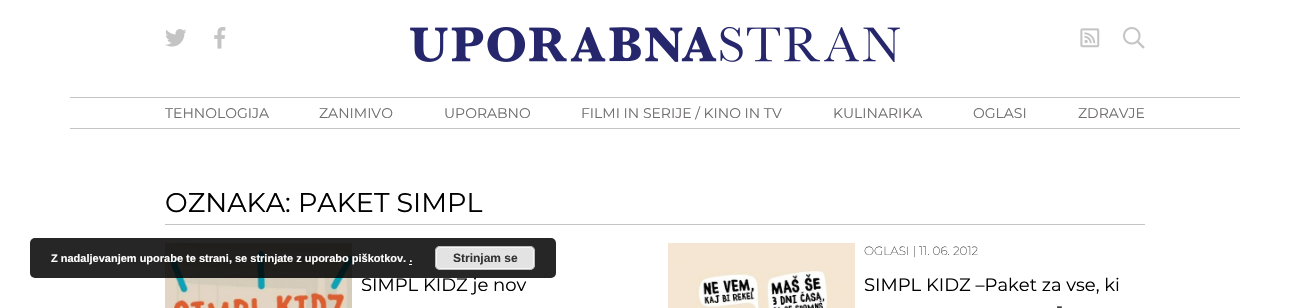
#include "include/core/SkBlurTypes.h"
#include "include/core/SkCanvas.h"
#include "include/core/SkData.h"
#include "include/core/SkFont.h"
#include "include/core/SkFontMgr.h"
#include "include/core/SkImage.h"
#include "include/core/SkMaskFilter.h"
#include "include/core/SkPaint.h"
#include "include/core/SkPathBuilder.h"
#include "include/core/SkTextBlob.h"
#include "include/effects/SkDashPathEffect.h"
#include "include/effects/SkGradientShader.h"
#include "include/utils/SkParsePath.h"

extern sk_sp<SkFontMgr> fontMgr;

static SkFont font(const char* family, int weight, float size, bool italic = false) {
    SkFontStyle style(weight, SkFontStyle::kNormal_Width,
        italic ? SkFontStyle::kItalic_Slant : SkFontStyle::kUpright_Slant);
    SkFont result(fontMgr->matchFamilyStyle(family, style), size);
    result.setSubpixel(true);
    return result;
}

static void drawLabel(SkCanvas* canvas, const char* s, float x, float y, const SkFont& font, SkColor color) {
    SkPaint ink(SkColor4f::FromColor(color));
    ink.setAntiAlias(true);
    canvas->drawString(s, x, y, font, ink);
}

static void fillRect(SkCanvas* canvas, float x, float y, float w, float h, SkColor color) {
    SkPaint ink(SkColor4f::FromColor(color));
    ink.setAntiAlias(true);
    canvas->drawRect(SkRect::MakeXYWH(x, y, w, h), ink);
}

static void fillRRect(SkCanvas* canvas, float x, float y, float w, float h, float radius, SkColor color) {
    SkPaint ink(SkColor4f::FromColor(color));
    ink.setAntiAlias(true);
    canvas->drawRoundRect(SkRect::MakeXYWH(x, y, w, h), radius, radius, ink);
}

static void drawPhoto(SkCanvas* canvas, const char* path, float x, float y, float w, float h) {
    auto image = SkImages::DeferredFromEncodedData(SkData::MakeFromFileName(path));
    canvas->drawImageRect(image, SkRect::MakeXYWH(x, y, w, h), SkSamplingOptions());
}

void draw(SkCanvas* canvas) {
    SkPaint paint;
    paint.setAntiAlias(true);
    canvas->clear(0xFFFFFFFF);
    drawPhoto(canvas, "assets/img1.png", 165, 29, 21, 18);
    drawPhoto(canvas, "assets/img2.png", 214, 27, 12, 22);
    drawPhoto(canvas, "assets/img3.png", 410, 27, 490, 35);
    drawPhoto(canvas, "assets/img4.png", 1080, 28, 20, 20);
    drawPhoto(canvas, "assets/img5.png", 1123, 27, 22, 22);
    fillRect(canvas, 70, 97, 1170, 1, 0xFFC4C4C4);
    fillRect(canvas, 70, 128, 1170, 1, 0xFFC4C4C4);
    SkFont font1 = font("Montserrat", 400, 14);
    drawLabel(canvas, "TEHNOLOGIJA", 165, 118, font1, 0xFF716E6E);
    drawLabel(canvas, "ZANIMIVO", 319, 118, font1, 0xFF716E6E);
    drawLabel(canvas, "UPORABNO", 444, 118, font1, 0xFF716E6E);
    drawLabel(canvas, "FILMI IN SERIJE / KINO IN TV", 581, 118, font1, 0xFF716E6E);
    drawLabel(canvas, "KULINARIKA", 833, 118, font1, 0xFF716E6E);
    drawLabel(canvas, "OGLASI", 973, 118, font1, 0xFF716E6E);
    drawLabel(canvas, "ZDRAVJE", 1078, 118, font1, 0xFF716E6E);
    fillRect(canvas, 165, 224, 980, 1, 0xFFC4C4C4);
    SkFont font2 = font("Montserrat", 400, 27);
    drawLabel(canvas, "OZNAKA: PAKET SIMPL", 165, 212, font2, 0xFF000000);
    drawPhoto(canvas, "assets/img6.png", 165, 243, 187, 65);
    SkFont font3 = font("Montserrat", 400, 18);
    drawLabel(canvas, "SIMPL KIDZ je nov", 361, 291, font3, 0xFF000000);
    drawPhoto(canvas, "assets/img7.png", 668, 243, 187, 65);
    SkFont font4 = font("Montserrat", 200, 12);
    drawLabel(canvas, "OGLASI | 11. 06. 2012", 864, 255, font4, 0xFF333333);
    drawLabel(canvas, "SIMPL KIDZ –Paket za vse, ki", 864, 291, font3, 0xFF000000);
    drawLabel(canvas, "-", 1056, 312, font3, 0xFF000000);
    fillRRect(canvas, 30, 238, 526, 40, 5, 0xD9000000);
    SkFont font5 = font("Liberation Sans", 700, 11);
    drawLabel(canvas, "Z nadaljevanjem uporabe te strani, se strinjate z uporabo piškotkov. .", 51, 262, font5, 0xFFFFFFFF);
    fillRRect(canvas, 435, 246, 100, 24, 5, 0xFFE3E3E3);
    paint.setStroke(true);
    paint.setStrokeWidth(1);
    paint.setColor(0xFFF6F6F6);
    canvas->drawRoundRect(SkRect::MakeXYWH(436.5f, 247.5f, 97, 21), 3.5f, 3.5f, paint);
    paint.setColor(0xFFBBBBBB);
    canvas->drawRoundRect(SkRect::MakeXYWH(435.5f, 246.5f, 99, 23), 4.5f, 4.5f, paint);
    SkFont font6 = font("Liberation Sans", 700, 12);
    drawLabel(canvas, "Strinjam se", 453, 262, font6, 0xFF333333);
    fillRect(canvas, 409, 264, 3, 1, 0xFFFFFFFF);
}
